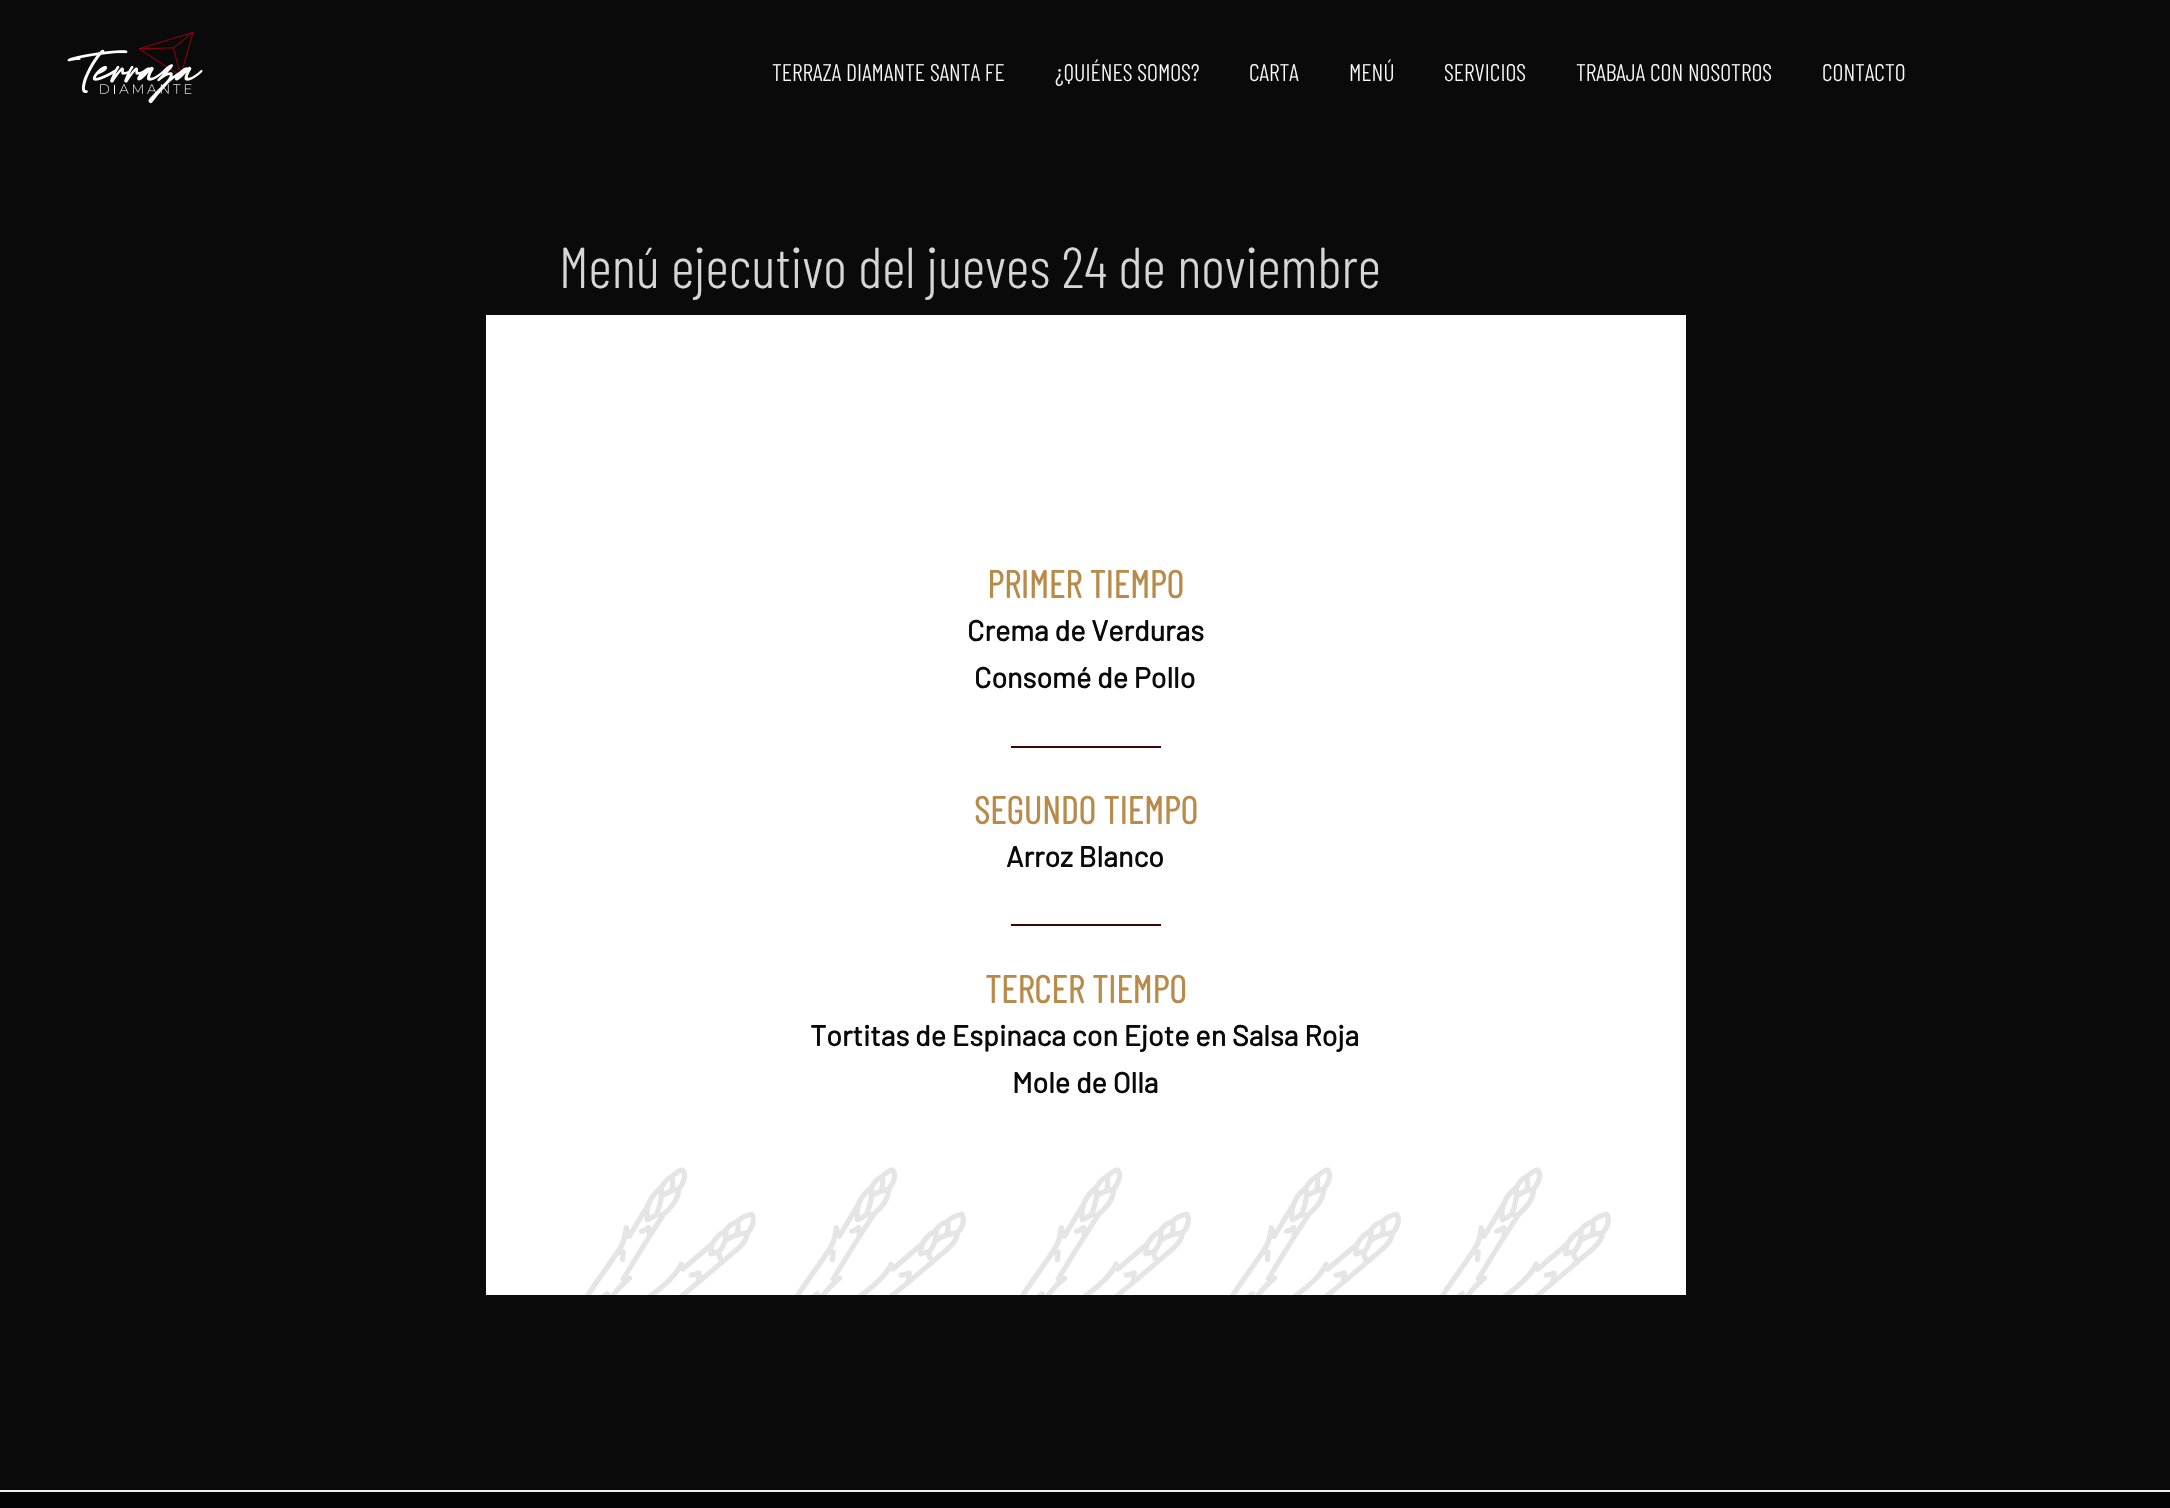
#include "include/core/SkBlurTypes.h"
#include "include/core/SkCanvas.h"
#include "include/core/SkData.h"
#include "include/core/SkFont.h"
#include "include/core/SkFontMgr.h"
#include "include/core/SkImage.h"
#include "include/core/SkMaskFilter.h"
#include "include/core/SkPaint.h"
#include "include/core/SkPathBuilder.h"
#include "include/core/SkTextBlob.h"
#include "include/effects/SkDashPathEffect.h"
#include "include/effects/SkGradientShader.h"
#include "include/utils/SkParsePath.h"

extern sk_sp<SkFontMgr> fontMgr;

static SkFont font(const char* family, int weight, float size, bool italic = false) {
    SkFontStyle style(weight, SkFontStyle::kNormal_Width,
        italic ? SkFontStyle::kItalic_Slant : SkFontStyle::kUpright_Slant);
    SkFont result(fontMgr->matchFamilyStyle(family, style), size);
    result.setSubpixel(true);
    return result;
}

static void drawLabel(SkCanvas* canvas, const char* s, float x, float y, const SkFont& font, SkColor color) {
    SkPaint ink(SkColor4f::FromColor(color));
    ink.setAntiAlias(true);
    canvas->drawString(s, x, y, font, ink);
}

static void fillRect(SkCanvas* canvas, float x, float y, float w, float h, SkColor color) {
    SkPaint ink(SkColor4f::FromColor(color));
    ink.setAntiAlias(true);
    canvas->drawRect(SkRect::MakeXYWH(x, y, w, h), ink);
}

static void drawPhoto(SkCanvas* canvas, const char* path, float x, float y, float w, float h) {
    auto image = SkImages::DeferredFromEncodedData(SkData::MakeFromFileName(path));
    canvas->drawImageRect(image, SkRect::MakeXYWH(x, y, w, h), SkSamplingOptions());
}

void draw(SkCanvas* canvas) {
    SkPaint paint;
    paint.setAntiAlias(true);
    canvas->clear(0xFF0A0A0A);
    drawPhoto(canvas, "assets/img1.png", 67, 31, 136, 73);
    SkFont font1 = font("Barlow Condensed", 300, 24);
    drawLabel(canvas, "TERRAZA DIAMANTE SANTA FE", 772, 81, font1, 0xFFFFFFFF);
    drawLabel(canvas, "¿QUIÉNES SOMOS?", 1055, 81, font1, 0xFFFFFFFF);
    drawLabel(canvas, "CARTA", 1249, 81, font1, 0xFFFFFFFF);
    drawLabel(canvas, "MENÚ", 1349, 81, font1, 0xFFFFFFFF);
    drawLabel(canvas, "SERVICIOS", 1444, 81, font1, 0xFFFFFFFF);
    drawLabel(canvas, "TRABAJA CON NOSOTROS", 1576, 81, font1, 0xFFFFFFFF);
    drawLabel(canvas, "CONTACTO", 1822, 81, font1, 0xFFFFFFFF);
    SkFont font2 = font("Barlow Condensed", 300, 57.6f);
    drawLabel(canvas, "Menú ejecutivo del jueves 24 de noviembre", 559, 288, font2, 0xFFD6D6D6);
    fillRect(canvas, 486, 315, 1200, 980, 0xFFFFFFFF);
    SkFont font3 = font("Barlow Condensed", 700, 38.5f);
    drawLabel(canvas, "PRIMER TIEMPO", 987, 598, font3, 0xFFB88B4A);
    SkFont font4 = font("Barlow", 700, 28.75f);
    drawLabel(canvas, "Crema de Verduras", 967, 641, font4, 0xFF0A0A0A);
    drawLabel(canvas, "Consomé de Pollo", 974, 688, font4, 0xFF0A0A0A);
    fillRect(canvas, 1011, 746, 150, 2, 0xFF420504);
    drawLabel(canvas, "SEGUNDO TIEMPO", 974, 824, font3, 0xFFB88B4A);
    drawLabel(canvas, "Arroz Blanco", 1006, 867, font4, 0xFF0A0A0A);
    fillRect(canvas, 1011, 924, 150, 2, 0xFF420504);
    drawLabel(canvas, "TERCER TIEMPO", 985, 1003, font3, 0xFFB88B4A);
    drawLabel(canvas, "Tortitas de Espinaca con Ejote en Salsa Roja", 810, 1046, font4, 0xFF0A0A0A);
    drawLabel(canvas, "Mole de Olla", 1012, 1093, font4, 0xFF0A0A0A);
    drawPhoto(canvas, "assets/img2.png", 585, 1167, 1026, 128);
    fillRect(canvas, 0, 1492, 2170, 16, 0xFF020305);
    fillRect(canvas, 0, 1490, 2170, 2, 0xFFEEEEEE);
}
